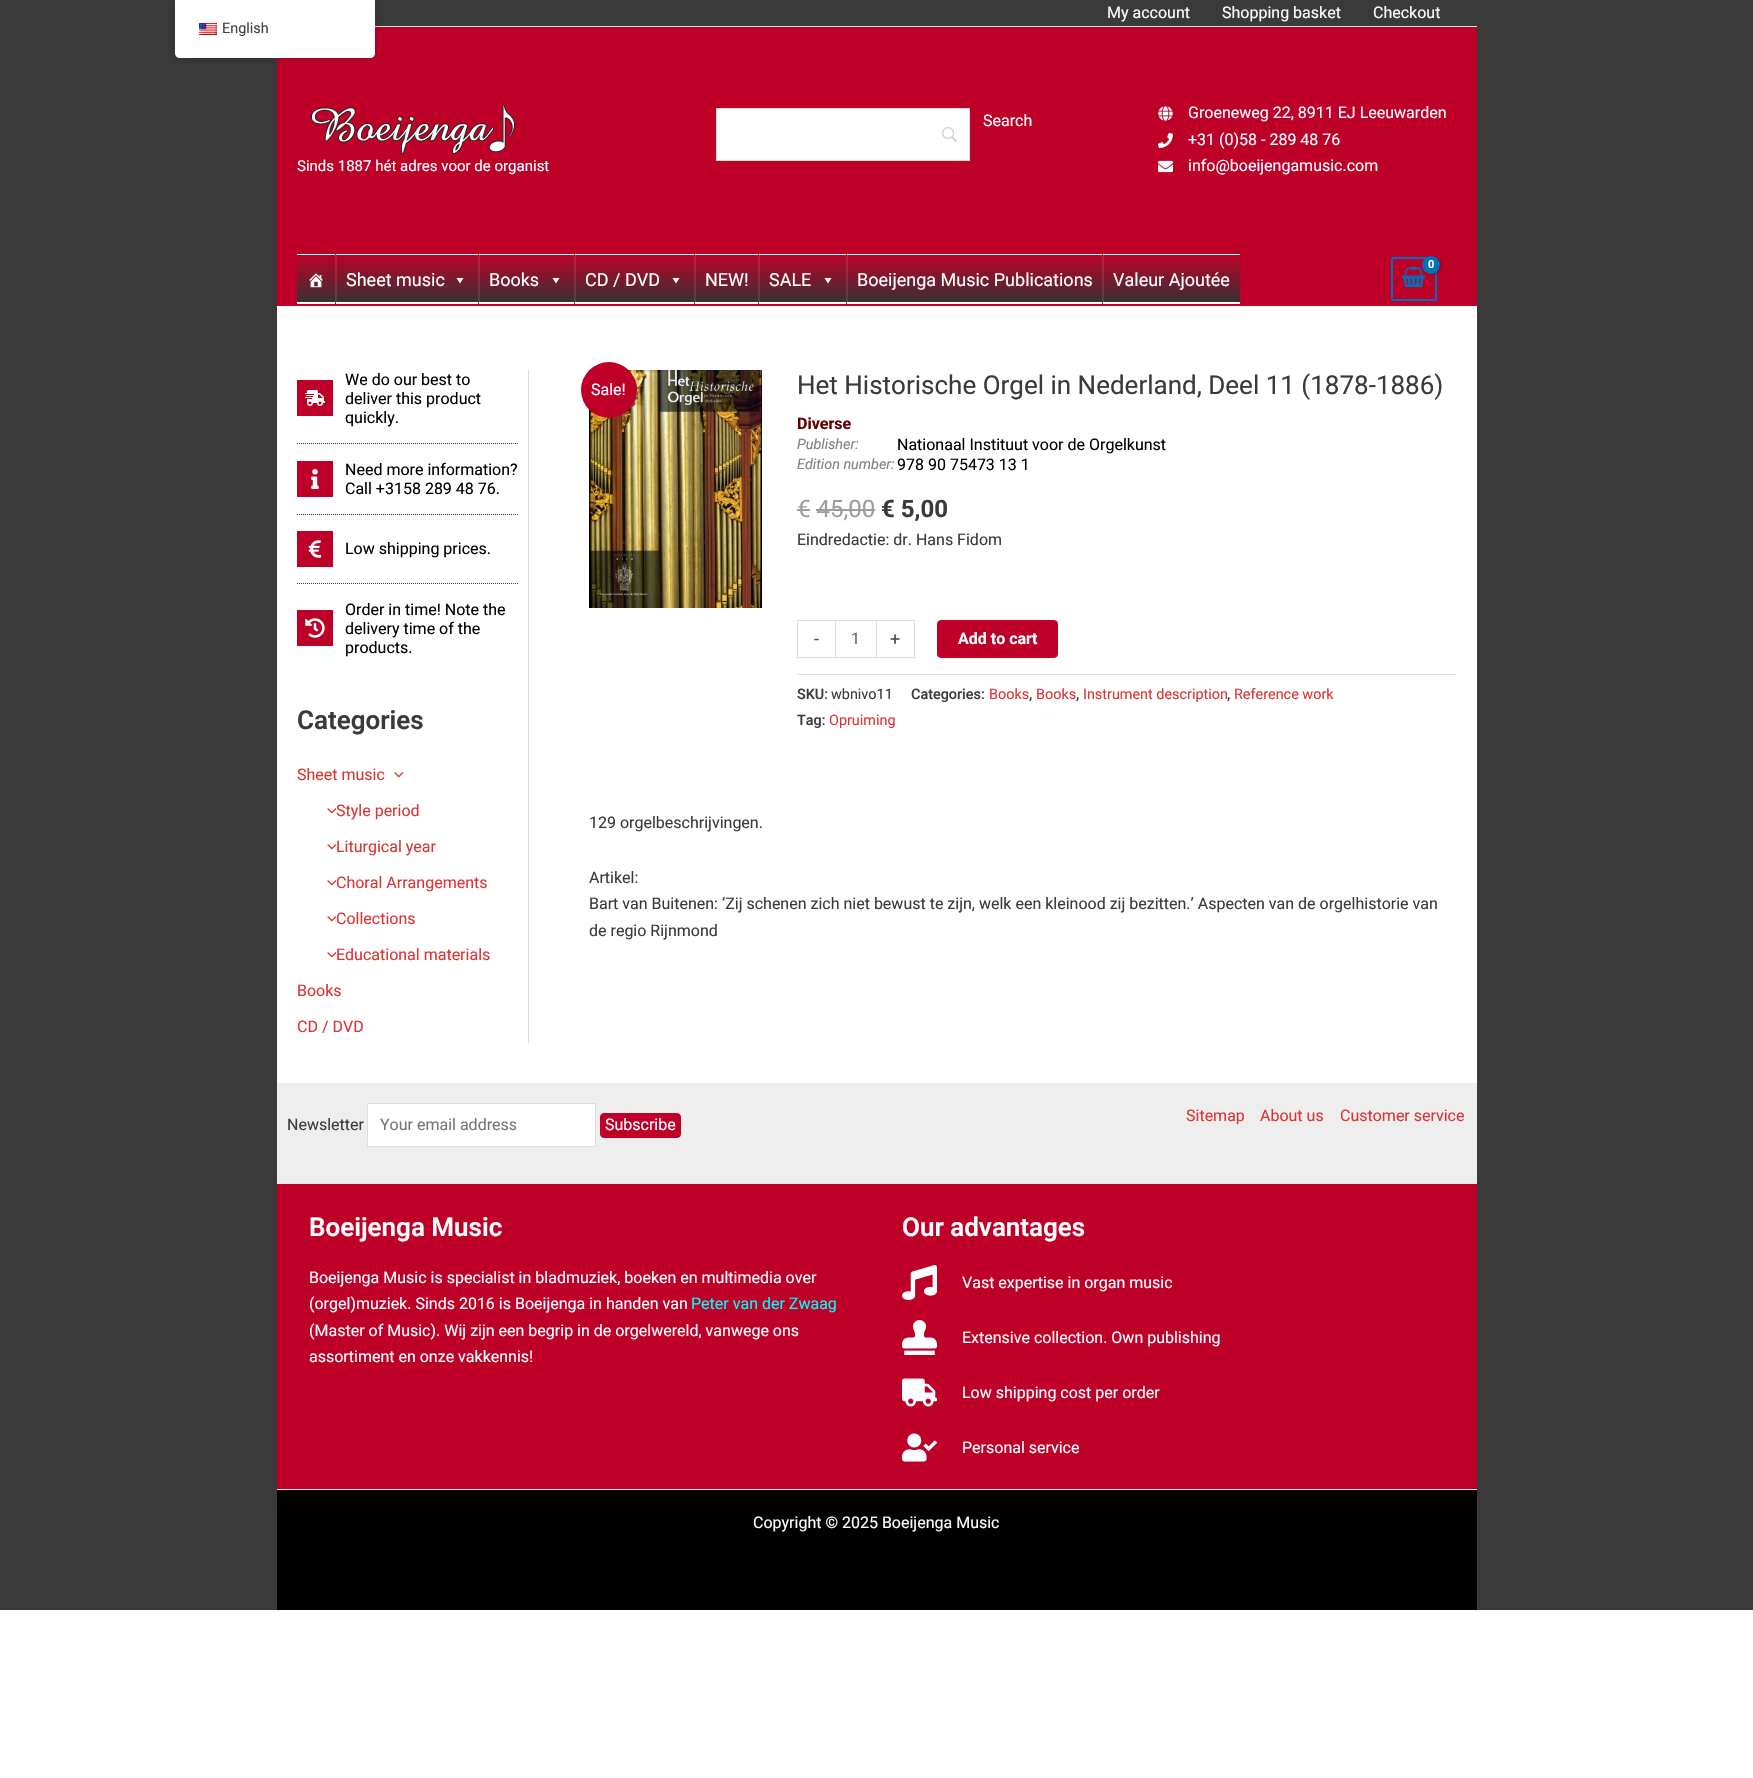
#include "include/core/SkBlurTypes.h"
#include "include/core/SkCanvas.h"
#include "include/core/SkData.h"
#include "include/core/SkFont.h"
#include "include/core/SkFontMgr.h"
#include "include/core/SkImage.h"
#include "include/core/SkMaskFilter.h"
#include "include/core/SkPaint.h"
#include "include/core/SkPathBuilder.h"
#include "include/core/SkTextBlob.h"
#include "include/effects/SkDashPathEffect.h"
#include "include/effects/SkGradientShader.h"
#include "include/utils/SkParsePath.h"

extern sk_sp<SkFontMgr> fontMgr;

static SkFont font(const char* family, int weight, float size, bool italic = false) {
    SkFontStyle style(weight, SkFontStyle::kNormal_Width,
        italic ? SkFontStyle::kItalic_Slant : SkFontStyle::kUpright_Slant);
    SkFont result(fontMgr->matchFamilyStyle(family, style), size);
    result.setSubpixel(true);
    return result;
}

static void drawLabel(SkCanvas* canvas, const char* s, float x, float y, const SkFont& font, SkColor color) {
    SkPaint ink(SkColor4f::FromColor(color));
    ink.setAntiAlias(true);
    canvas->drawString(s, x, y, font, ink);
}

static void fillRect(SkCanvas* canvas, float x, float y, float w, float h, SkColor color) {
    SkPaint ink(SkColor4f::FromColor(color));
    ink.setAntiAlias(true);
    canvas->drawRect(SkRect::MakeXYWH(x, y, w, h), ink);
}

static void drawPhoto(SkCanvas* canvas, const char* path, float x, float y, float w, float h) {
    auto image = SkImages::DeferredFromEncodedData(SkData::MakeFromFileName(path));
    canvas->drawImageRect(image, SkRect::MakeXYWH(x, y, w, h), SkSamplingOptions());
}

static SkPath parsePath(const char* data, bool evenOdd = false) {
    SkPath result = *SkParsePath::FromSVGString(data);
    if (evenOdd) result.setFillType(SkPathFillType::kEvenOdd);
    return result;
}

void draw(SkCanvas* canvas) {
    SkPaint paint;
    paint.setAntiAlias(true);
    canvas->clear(0xFFFFFFFF);
    fillRect(canvas, 0, 0, 1753, 1610, 0xFF3A3A3A);
    fillRect(canvas, 375, 26, 1102, 1, 0xFFE5E5E5);
    fillRect(canvas, 277, 253, 1200, 53, 0xFFBE0028);
    paint.setStroke(true);
    paint.setStrokeWidth(2);
    paint.setColor(0xFF0170B9);
    canvas->drawRoundRect(SkRect::MakeXYWH(1392, 258, 44, 42), 1, 1, paint);
    drawPhoto(canvas, "assets/img7.png", 1401, 266, 24, 22);
    paint.setStroke(false);
    paint.setColor(0x4D000000);
    paint.setMaskFilter(SkMaskFilter::MakeBlur(kNormal_SkBlurStyle, 1.5f));
    canvas->drawRoundRect(SkRect::MakeXYWH(1423, 257, 18, 18), 9, 9, paint);
    paint.setMaskFilter(nullptr);
    fillRect(canvas, 277, 27, 1200, 226, 0xFFBE0028);
    paint.setColor(0x40000000);
    paint.setMaskFilter(SkMaskFilter::MakeBlur(kNormal_SkBlurStyle, 4));
    canvas->drawRoundRect(SkRect::MakeXYWH(175, 0, 200, 58), 5, 5, paint);
    paint.setMaskFilter(nullptr);
    paint.setColor(0xFFFFFFFF);
    canvas->drawPath(parsePath("M175 0H375V53C375 56 373 58 370 58H180C177 58 175 56 175 53Z"), paint);
    drawPhoto(canvas, "assets/img1.png", 199, 23, 18, 12);
    SkFont font1 = font("Roboto", 400, 14.4f);
    drawLabel(canvas, "English", 222, 33, font1, 0xFF404040);
    SkFont font2 = font("Roboto", 400, 16);
    drawLabel(canvas, "My account", 1107, 18, font2, 0xFFFFFFFF);
    drawLabel(canvas, "Shopping basket", 1222, 18, font2, 0xFFFFFFFF);
    drawLabel(canvas, "Checkout", 1373, 18, font2, 0xFFFFFFFF);
    fillRect(canvas, 717, 109, 252, 51, 0xFFFFFFFF);
    drawPhoto(canvas, "assets/img2.png", 942, 127, 15, 15);
    paint.setStroke(true);
    paint.setStrokeWidth(1);
    paint.setColor(0xFFDDDDDD);
    canvas->drawRect(SkRect::MakeXYWH(716.5f, 108.5f, 253, 52), paint);
    drawLabel(canvas, "Search", 983, 126, font2, 0xFFFFFFFF);
    drawPhoto(canvas, "assets/img3.png", 1158, 106, 15, 15);
    drawLabel(canvas, "Groeneweg 22, 8911 EJ Leeuwarden", 1188, 118, font2, 0xFFFFFFFF);
    drawPhoto(canvas, "assets/img4.png", 1158, 133, 15, 15);
    drawLabel(canvas, "+31 (0)58 - 289 48 76", 1188, 145, font2, 0xFFFFFFFF);
    drawPhoto(canvas, "assets/img5.png", 1158, 160, 15, 13);
    drawLabel(canvas, "info@boeijengamusic.com", 1188, 171, font2, 0xFFFFFFFF);
    drawPhoto(canvas, "assets/img6.png", 311, 104, 204, 50);
    SkFont font3 = font("Roboto", 400, 15);
    drawLabel(canvas, "Sinds 1887 hét adres voor de organist", 297, 171, font3, 0xFFFFFFFF);
    paint.setStroke(false);
    paint.setColor(0xFF0170B9);
    canvas->drawCircle(1431, 265, 9, paint);
    SkFont font4 = font("Roboto", 700, 11);
    drawLabel(canvas, "0", 1428, 268, font4, 0xFFFFFFFF);
    {
        const SkColor colors[] = {0xFFBE0028, 0xFF333333};
        const float stops[] = {0, 1};
        const SkPoint ends[] = {{769, 254}, {769, 304}};
        paint.setShader(SkGradientShader::MakeLinear(ends, colors, stops, 2, SkTileMode::kClamp));
        paint.setAlpha(255);
    }
    canvas->drawRect(SkRect::MakeXYWH(297, 255, 943, 47), paint);
    {
        const SkColor colors[] = {0xFFC51A3E, 0xFF474747};
        const float stops[] = {0, 1};
        const SkPoint ends[] = {{769, 254}, {769, 304}};
        paint.setShader(SkGradientShader::MakeLinear(ends, colors, stops, 2, SkTileMode::kClamp));
        paint.setAlpha(255);
    }
    canvas->drawRect(SkRect::MakeXYWH(1102, 254, 1, 50), paint);
    canvas->drawRect(SkRect::MakeXYWH(1103, 254, 1, 50), paint);
    canvas->drawRect(SkRect::MakeXYWH(846, 254, 1, 50), paint);
    canvas->drawRect(SkRect::MakeXYWH(847, 254, 1, 50), paint);
    canvas->drawRect(SkRect::MakeXYWH(694, 254, 1, 50), paint);
    canvas->drawRect(SkRect::MakeXYWH(695, 254, 1, 50), paint);
    canvas->drawRect(SkRect::MakeXYWH(758, 254, 1, 50), paint);
    canvas->drawRect(SkRect::MakeXYWH(759, 254, 1, 50), paint);
    canvas->drawRect(SkRect::MakeXYWH(574, 254, 1, 50), paint);
    canvas->drawRect(SkRect::MakeXYWH(575, 254, 1, 50), paint);
    canvas->drawRect(SkRect::MakeXYWH(478, 254, 1, 50), paint);
    canvas->drawRect(SkRect::MakeXYWH(479, 254, 1, 50), paint);
    canvas->drawRect(SkRect::MakeXYWH(335, 254, 1, 50), paint);
    canvas->drawRect(SkRect::MakeXYWH(336, 254, 1, 50), paint);
    fillRect(canvas, 297, 254, 38, 1, 0xFFFFFFFF);
    fillRect(canvas, 297, 302, 38, 2, 0xFFFFFFFF);
    drawPhoto(canvas, "assets/img8.png", 309, 273, 14, 15);
    fillRect(canvas, 336, 254, 142, 1, 0xFFFFFFFF);
    fillRect(canvas, 336, 302, 142, 2, 0xFFFFFFFF);
    SkFont font5 = font("Roboto", 400, 18);
    drawLabel(canvas, "Sheet music", 346, 286, font5, 0xFFFFFFFF);
    paint.setShader(nullptr);
    paint.setColor(0xFFFFFFFF);
    canvas->drawPath(parsePath("M463.5 278L460 283.5L456.5 278Z"), paint);
    fillRect(canvas, 479, 254, 95, 1, 0xFFFFFFFF);
    fillRect(canvas, 479, 302, 95, 2, 0xFFFFFFFF);
    drawLabel(canvas, "Books", 489, 286, font5, 0xFFFFFFFF);
    canvas->drawPath(parsePath("M559.5 278L556 283.5L552.5 278Z"), paint);
    fillRect(canvas, 575, 254, 119, 1, 0xFFFFFFFF);
    fillRect(canvas, 575, 302, 119, 2, 0xFFFFFFFF);
    drawLabel(canvas, "CD / DVD", 585, 286, font5, 0xFFFFFFFF);
    canvas->drawPath(parsePath("M679.5 278L676 283.5L672.5 278Z"), paint);
    fillRect(canvas, 695, 254, 63, 1, 0xFFFFFFFF);
    fillRect(canvas, 695, 302, 63, 2, 0xFFFFFFFF);
    drawLabel(canvas, "NEW!", 705, 286, font5, 0xFFFFFFFF);
    fillRect(canvas, 759, 254, 87, 1, 0xFFFFFFFF);
    fillRect(canvas, 759, 302, 87, 2, 0xFFFFFFFF);
    drawLabel(canvas, "SALE", 769, 286, font5, 0xFFFFFFFF);
    canvas->drawPath(parsePath("M831.5 278L828 283.5L824.5 278Z"), paint);
    fillRect(canvas, 847, 254, 255, 1, 0xFFFFFFFF);
    fillRect(canvas, 847, 302, 255, 2, 0xFFFFFFFF);
    drawLabel(canvas, "Boeijenga Music Publications", 857, 286, font5, 0xFFFFFFFF);
    fillRect(canvas, 1103, 254, 137, 1, 0xFFFFFFFF);
    fillRect(canvas, 1103, 302, 137, 2, 0xFFFFFFFF);
    drawLabel(canvas, "Valeur Ajoutée", 1113, 286, font5, 0xFFFFFFFF);
    fillRect(canvas, 277, 306, 1200, 777, 0xFFFFFFFF);
    fillRect(canvas, 528, 370, 1, 673, 0xFFDDDDDD);
    paint.setStroke(true);
    paint.setColor(0xFF3A3A3A);
    paint.setPathEffect(SkDashPathEffect::Make({{1, 1}}, 0));
    canvas->drawPath(parsePath("M297 443.5H518"), paint);
    paint.setPathEffect(nullptr);
    fillRect(canvas, 297, 380, 36, 36, 0xFFBE0028);
    drawPhoto(canvas, "assets/img9.png", 305, 390, 20, 16);
    drawLabel(canvas, "We do our best to", 345, 385, font2, 0xFF000000);
    drawLabel(canvas, "deliver this product", 345, 404, font2, 0xFF000000);
    drawLabel(canvas, "quickly.", 345, 423, font2, 0xFF000000);
    paint.setPathEffect(SkDashPathEffect::Make({{1, 1}}, 0));
    canvas->drawPath(parsePath("M297 514.5H518"), paint);
    paint.setPathEffect(nullptr);
    fillRect(canvas, 297, 461, 36, 36, 0xFFBE0028);
    drawPhoto(canvas, "assets/img10.png", 311, 469, 8, 20);
    drawLabel(canvas, "Need more information?", 345, 475, font2, 0xFF000000);
    drawLabel(canvas, "Call +3158 289 48 76.", 345, 494, font2, 0xFF000000);
    paint.setPathEffect(SkDashPathEffect::Make({{1, 1}}, 0));
    canvas->drawPath(parsePath("M297 583.5H518"), paint);
    paint.setPathEffect(nullptr);
    fillRect(canvas, 297, 531, 36, 36, 0xFFBE0028);
    drawPhoto(canvas, "assets/img11.png", 308, 540, 14, 18);
    drawLabel(canvas, "Low shipping prices.", 345, 554, font2, 0xFF000000);
    fillRect(canvas, 297, 610, 36, 36, 0xFFBE0028);
    drawPhoto(canvas, "assets/img12.png", 305, 618, 20, 20);
    drawLabel(canvas, "Order in time! Note the", 345, 615, font2, 0xFF000000);
    drawLabel(canvas, "delivery time of the", 345, 634, font2, 0xFF000000);
    drawLabel(canvas, "products.", 345, 653, font2, 0xFF000000);
    SkFont font6 = font("Roboto", 600, 26);
    drawLabel(canvas, "Categories", 297, 729, font6, 0xFF3A3A3A);
    drawLabel(canvas, "Sheet music", 297, 780, font2, 0xFFDD3333);
    drawPhoto(canvas, "assets/img13.png", 394, 772, 10, 6);
    drawPhoto(canvas, "assets/img14.png", 327, 808, 9, 6);
    drawLabel(canvas, "Style period", 336, 816, font2, 0xFFDD3333);
    drawPhoto(canvas, "assets/img14.png", 327, 844, 9, 6);
    drawLabel(canvas, "Liturgical year", 336, 852, font2, 0xFFDD3333);
    drawPhoto(canvas, "assets/img14.png", 327, 880, 9, 6);
    drawLabel(canvas, "Choral Arrangements", 336, 888, font2, 0xFFDD3333);
    drawPhoto(canvas, "assets/img14.png", 327, 916, 9, 6);
    drawLabel(canvas, "Collections", 336, 924, font2, 0xFFDD3333);
    drawPhoto(canvas, "assets/img14.png", 327, 952, 9, 6);
    drawLabel(canvas, "Educational materials", 336, 960, font2, 0xFFDD3333);
    drawLabel(canvas, "Books", 297, 996, font2, 0xFFDD3333);
    drawLabel(canvas, "CD / DVD", 297, 1032, font2, 0xFFDD3333);
    drawPhoto(canvas, "assets/img15.png", 589, 370, 173, 238);
    SkFont font7 = font("Roboto", 400, 26);
    drawLabel(canvas, "Het Historische Orgel in Nederland, Deel 11 (1878-1886)", 797, 394, font7, 0xFF3A3A3A);
    SkFont font8 = font("Roboto", 700, 16);
    drawLabel(canvas, "Diverse", 797, 429, font8, 0xFF600000);
    SkFont font9 = font("Roboto", 400, 14.4f, true);
    drawLabel(canvas, "Publisher:", 797, 449, font9, 0xFF808080);
    drawLabel(canvas, "Nationaal Instituut voor de Orgelkunst", 897, 450, font2, 0xFF000000);
    drawLabel(canvas, "Edition number:", 797, 469, font9, 0xFF808080);
    drawLabel(canvas, "978 90 75473 13 1", 897, 470, font2, 0xFF000000);
    SkFont font10 = font("Roboto", 400, 24);
    drawLabel(canvas, "€ 45,00", 797, 517, font10, 0xFF9D9D9D);
    fillRect(canvas, 797, 509, 13, 2, 0xFF9D9D9D);
    fillRect(canvas, 816, 509, 59, 2, 0xFF9D9D9D);
    SkFont font11 = font("Roboto", 700, 24);
    drawLabel(canvas, "€ 5,00", 881, 517, font11, 0xFF3A3A3A);
    drawLabel(canvas, "Eindredactie: dr. Hans Fidom", 797, 545, font2, 0xFF3A3A3A);
    fillRect(canvas, 797, 620, 38, 1, 0xFFDDDDDD);
    fillRect(canvas, 797, 657, 38, 1, 0xFFDDDDDD);
    fillRect(canvas, 797, 620, 1, 38, 0xFFDDDDDD);
    drawLabel(canvas, "-", 814, 645, font5, 0xFF4B4F58);
    paint.setColor(0xFFDDDDDD);
    canvas->drawRect(SkRect::MakeXYWH(835.5f, 620.5f, 41, 37), paint);
    drawLabel(canvas, "1", 851, 644, font2, 0xFF666666);
    fillRect(canvas, 877, 620, 38, 1, 0xFFDDDDDD);
    fillRect(canvas, 914, 620, 1, 38, 0xFFDDDDDD);
    fillRect(canvas, 877, 657, 38, 1, 0xFFDDDDDD);
    drawLabel(canvas, "+", 890, 645, font5, 0xFF4B4F58);
    paint.setStroke(false);
    paint.setColor(0xFFBE0028);
    canvas->drawRoundRect(SkRect::MakeXYWH(937.5f, 620.5f, 120, 37), 3.5f, 3.5f, paint);
    paint.setStroke(true);
    canvas->drawRoundRect(SkRect::MakeXYWH(937.5f, 620.5f, 120, 37), 3.5f, 3.5f, paint);
    drawLabel(canvas, "Add to cart", 958, 644, font8, 0xFFFFFFFF);
    fillRect(canvas, 797, 674, 659, 1, 0xFFDDDDDD);
    SkFont font12 = font("Roboto", 500, 14.4f);
    drawLabel(canvas, "SKU:", 797, 699, font12, 0xFF3A3A3A);
    drawLabel(canvas, "wbnivo11", 831, 699, font1, 0xFF3A3A3A);
    drawLabel(canvas, "Categories:", 911, 699, font12, 0xFF3A3A3A);
    drawLabel(canvas, "Books", 989, 699, font1, 0xFFDD3333);
    drawLabel(canvas, ",", 1029, 699, font12, 0xFF3A3A3A);
    drawLabel(canvas, "Books", 1036, 699, font1, 0xFFDD3333);
    drawLabel(canvas, ",", 1076, 699, font12, 0xFF3A3A3A);
    drawLabel(canvas, "Instrument description", 1083, 699, font1, 0xFFDD3333);
    drawLabel(canvas, ",", 1227, 699, font12, 0xFF3A3A3A);
    drawLabel(canvas, "Reference work", 1234, 699, font1, 0xFFDD3333);
    drawLabel(canvas, "Tag:", 797, 725, font12, 0xFF3A3A3A);
    drawLabel(canvas, "Opruiming", 829, 725, font1, 0xFFDD3333);
    paint.setStroke(false);
    canvas->drawCircle(609, 390, 28, paint);
    drawLabel(canvas, "Sale!", 591, 395, font2, 0xFFFFFFFF);
    drawLabel(canvas, "129 orgelbeschrijvingen.", 589, 828, font2, 0xFF3A3A3A);
    drawLabel(canvas, "Artikel:", 589, 883, font2, 0xFF3A3A3A);
    drawLabel(canvas, "Bart van Buitenen: ‘Zij schenen zich niet bewust te zijn, welk een kleinood zij bezitten.’ Aspecten van de orgelhistorie van", 589, 909, font2, 0xFF3A3A3A);
    drawLabel(canvas, "de regio Rijnmond", 589, 936, font2, 0xFF3A3A3A);
    fillRect(canvas, 277, 1083, 1200, 100, 0xFFEEEEEE);
    drawLabel(canvas, "Newsletter", 287, 1130, font2, 0xFF3A3A3A);
    paint.setColor(0xFFFFFFFF);
    canvas->drawRect(SkRect::MakeXYWH(367.5f, 1103.5f, 228, 43), paint);
    paint.setStroke(true);
    paint.setColor(0xFFDDDDDD);
    canvas->drawRect(SkRect::MakeXYWH(367.5f, 1103.5f, 228, 43), paint);
    drawLabel(canvas, "Your email address", 380, 1130, font2, 0xFF757575);
    paint.setStroke(false);
    paint.setColor(0xFFBE0028);
    canvas->drawRoundRect(SkRect::MakeXYWH(600.5f, 1113.5f, 80, 24), 3.5f, 3.5f, paint);
    paint.setStroke(true);
    canvas->drawRoundRect(SkRect::MakeXYWH(600.5f, 1113.5f, 80, 24), 3.5f, 3.5f, paint);
    drawLabel(canvas, "Subscribe", 605, 1130, font2, 0xFFFFFFFF);
    drawLabel(canvas, "Sitemap", 1186, 1121, font2, 0xFFDD3333);
    drawLabel(canvas, "About us", 1260, 1121, font2, 0xFFDD3333);
    drawLabel(canvas, "Customer service", 1340, 1121, font2, 0xFFDD3333);
    fillRect(canvas, 277, 1184, 1200, 305, 0xFFBE0028);
    fillRect(canvas, 277, 1183, 1200, 1, 0xFFE5E5E5);
    drawLabel(canvas, "Boeijenga Music", 309, 1236, font6, 0xFFFFFFFF);
    drawLabel(canvas, "Boeijenga Music is specialist in bladmuziek, boeken en multimedia over", 309, 1283, font2, 0xFFFFFFFF);
    drawLabel(canvas, "(orgel)muziek. Sinds 2016 is Boeijenga in handen van", 309, 1309, font2, 0xFFFFFFFF);
    drawLabel(canvas, "Peter van der Zwaag", 691, 1309, font2, 0xFF00FFFF);
    drawLabel(canvas, "(Master of Music). Wij zijn een begrip in de orgelwereld, vanwege ons", 309, 1336, font2, 0xFFFFFFFF);
    drawLabel(canvas, "assortiment en onze vakkennis!", 309, 1362, font2, 0xFFFFFFFF);
    drawLabel(canvas, "Our advantages", 902, 1236, font6, 0xFFFFFFFF);
    drawPhoto(canvas, "assets/img16.png", 902, 1265, 35, 35);
    drawLabel(canvas, "Vast expertise in organ music", 962, 1288, font2, 0xFFFFFFFF);
    drawPhoto(canvas, "assets/img17.png", 902, 1320, 35, 35);
    drawLabel(canvas, "Extensive collection. Own publishing", 962, 1343, font2, 0xFFFFFFFF);
    drawPhoto(canvas, "assets/img18.png", 902, 1378, 35, 29);
    drawLabel(canvas, "Low shipping cost per order", 962, 1398, font2, 0xFFFFFFFF);
    drawPhoto(canvas, "assets/img19.png", 902, 1433, 35, 29);
    drawLabel(canvas, "Personal service", 962, 1453, font2, 0xFFFFFFFF);
    fillRect(canvas, 277, 1490, 1200, 120, 0xFF000000);
    fillRect(canvas, 277, 1489, 1200, 1, 0xFFE5E5E5);
    drawLabel(canvas, "Copyright © 2025 Boeijenga Music", 753, 1528, font2, 0xFFFFFFFF);
}
